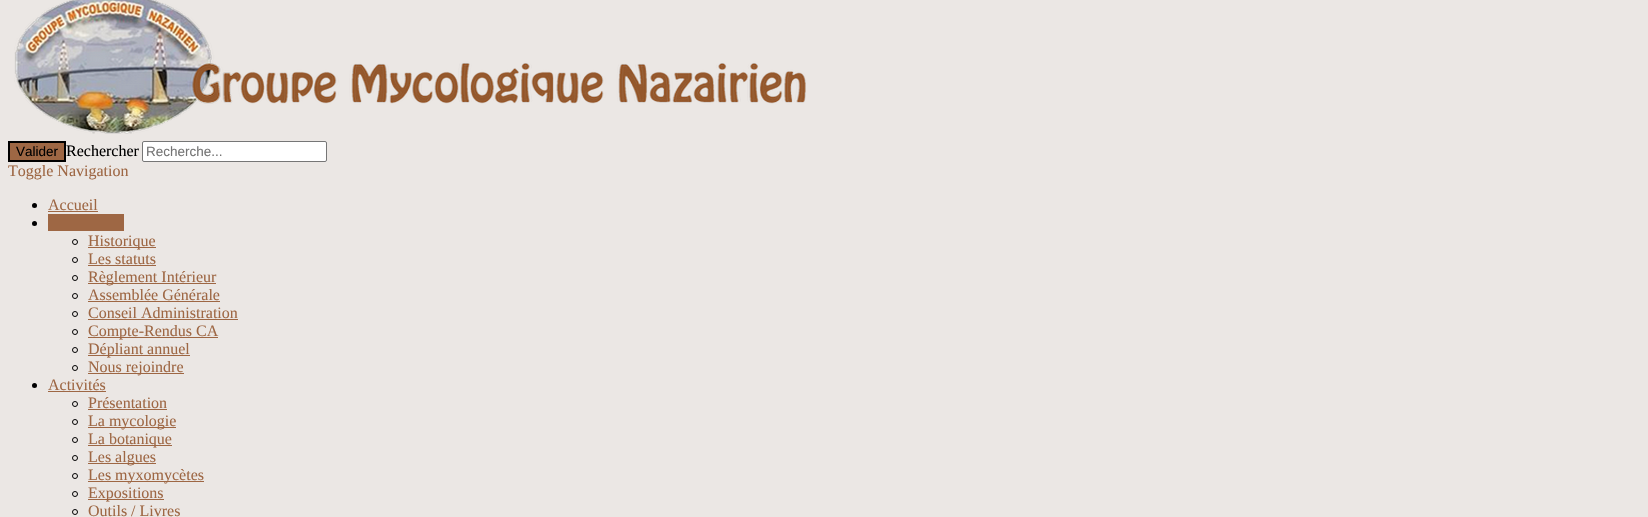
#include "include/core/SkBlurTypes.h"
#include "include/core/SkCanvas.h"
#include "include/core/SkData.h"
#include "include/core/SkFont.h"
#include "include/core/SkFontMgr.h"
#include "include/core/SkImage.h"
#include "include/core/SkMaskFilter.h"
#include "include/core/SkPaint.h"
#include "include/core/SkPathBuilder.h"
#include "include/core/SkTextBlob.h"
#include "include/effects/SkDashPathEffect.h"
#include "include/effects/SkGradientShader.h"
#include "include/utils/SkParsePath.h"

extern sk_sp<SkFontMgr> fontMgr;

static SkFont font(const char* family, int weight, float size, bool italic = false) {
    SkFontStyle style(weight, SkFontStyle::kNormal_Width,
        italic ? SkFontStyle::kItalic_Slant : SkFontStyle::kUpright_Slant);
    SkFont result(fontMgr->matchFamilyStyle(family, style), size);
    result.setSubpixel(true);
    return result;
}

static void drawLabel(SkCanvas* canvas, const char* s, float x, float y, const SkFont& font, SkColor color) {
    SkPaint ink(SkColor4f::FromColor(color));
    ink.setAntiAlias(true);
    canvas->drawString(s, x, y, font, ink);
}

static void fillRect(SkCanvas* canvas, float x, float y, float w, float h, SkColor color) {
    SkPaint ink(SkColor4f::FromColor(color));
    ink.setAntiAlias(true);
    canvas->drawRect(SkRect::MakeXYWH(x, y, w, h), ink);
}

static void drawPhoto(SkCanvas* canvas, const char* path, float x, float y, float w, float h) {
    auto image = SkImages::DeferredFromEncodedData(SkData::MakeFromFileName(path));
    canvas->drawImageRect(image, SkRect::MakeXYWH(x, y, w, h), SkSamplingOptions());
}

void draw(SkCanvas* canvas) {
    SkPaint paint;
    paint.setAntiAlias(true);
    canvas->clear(0xFFEBE7E4);
    drawPhoto(canvas, "assets/img1.png", 14, 0, 792, 134);
    paint.setColor(0xFF9E6744);
    canvas->drawRect(SkRect::MakeXYWH(9, 142, 56, 19), paint);
    paint.setStroke(true);
    paint.setStrokeWidth(2);
    paint.setColor(0xFF000000);
    canvas->drawRect(SkRect::MakeXYWH(9, 142, 56, 19), paint);
    SkFont font1 = font("Liberation Sans", 400, 13.5f);
    drawLabel(canvas, "Valider", 16, 156, font1, 0xFF000000);
    SkFont font2 = font("Liberation Serif", 400, 16);
    drawLabel(canvas, "Rechercher", 66, 156, font2, 0xFF000000);
    paint.setStroke(false);
    paint.setColor(0xFFFFFFFF);
    canvas->drawRoundRect(SkRect::MakeXYWH(142.5f, 141.5f, 184, 20), 1.5f, 1.5f, paint);
    paint.setStroke(true);
    paint.setStrokeWidth(1);
    paint.setColor(0xFF767676);
    canvas->drawRoundRect(SkRect::MakeXYWH(142.5f, 141.5f, 184, 20), 1.5f, 1.5f, paint);
    drawLabel(canvas, "Recherche...", 146, 156, font1, 0xFF757575);
    drawLabel(canvas, "Toggle Navigation", 8, 176, font2, 0xFF9E6744);
    paint.setStroke(false);
    paint.setColor(0xFF000000);
    canvas->drawCircle(34.5f, 205.5f, 2.5f, paint);
    drawLabel(canvas, "Accueil", 48, 210, font2, 0xFF9E6744);
    fillRect(canvas, 48, 211, 50, 1, 0xFF9E6744);
    canvas->drawCircle(34.5f, 223.5f, 2.5f, paint);
    fillRect(canvas, 48, 214, 76, 17, 0xFF9E6744);
    paint.setStroke(true);
    canvas->drawCircle(75, 242, 2.5f, paint);
    fillRect(canvas, 88, 247, 68, 1, 0xFF9E6744);
    drawLabel(canvas, "Historique", 88, 246, font2, 0xFF9E6744);
    canvas->drawCircle(75, 260, 2.5f, paint);
    drawLabel(canvas, "Les statuts", 88, 264, font2, 0xFF9E6744);
    fillRect(canvas, 88, 265, 68, 1, 0xFF9E6744);
    canvas->drawCircle(75, 278, 2.5f, paint);
    fillRect(canvas, 88, 283, 128, 1, 0xFF9E6744);
    drawLabel(canvas, "Règlement Intérieur", 88, 282, font2, 0xFF9E6744);
    canvas->drawCircle(75, 296, 2.5f, paint);
    drawLabel(canvas, "Assemblée Générale", 88, 300, font2, 0xFF9E6744);
    fillRect(canvas, 88, 301, 132, 1, 0xFF9E6744);
    canvas->drawCircle(75, 314, 2.5f, paint);
    drawLabel(canvas, "Conseil Administration", 88, 318, font2, 0xFF9E6744);
    fillRect(canvas, 88, 319, 150, 1, 0xFF9E6744);
    canvas->drawCircle(75, 332, 2.5f, paint);
    fillRect(canvas, 88, 337, 130, 1, 0xFF9E6744);
    drawLabel(canvas, "Compte-Rendus CA", 88, 336, font2, 0xFF9E6744);
    canvas->drawCircle(75, 350, 2.5f, paint);
    fillRect(canvas, 88, 355, 102, 1, 0xFF9E6744);
    drawLabel(canvas, "Dépliant annuel", 88, 354, font2, 0xFF9E6744);
    canvas->drawCircle(75, 368, 2.5f, paint);
    fillRect(canvas, 88, 373, 96, 1, 0xFF9E6744);
    drawLabel(canvas, "Nous rejoindre", 88, 372, font2, 0xFF9E6744);
    paint.setStroke(false);
    canvas->drawCircle(34.5f, 385.5f, 2.5f, paint);
    drawLabel(canvas, "Activités", 48, 390, font2, 0xFF9E6744);
    fillRect(canvas, 48, 391, 58, 1, 0xFF9E6744);
    paint.setStroke(true);
    canvas->drawCircle(75, 404, 2.5f, paint);
    drawLabel(canvas, "Présentation", 88, 408, font2, 0xFF9E6744);
    fillRect(canvas, 88, 409, 79, 1, 0xFF9E6744);
    canvas->drawCircle(75, 422, 2.5f, paint);
    fillRect(canvas, 88, 427, 88, 1, 0xFF9E6744);
    drawLabel(canvas, "La mycologie", 88, 426, font2, 0xFF9E6744);
    canvas->drawCircle(75, 440, 2.5f, paint);
    fillRect(canvas, 88, 445, 84, 1, 0xFF9E6744);
    drawLabel(canvas, "La botanique", 88, 444, font2, 0xFF9E6744);
    canvas->drawCircle(75, 458, 2.5f, paint);
    fillRect(canvas, 88, 463, 68, 1, 0xFF9E6744);
    drawLabel(canvas, "Les algues", 88, 462, font2, 0xFF9E6744);
    canvas->drawCircle(75, 476, 2.5f, paint);
    fillRect(canvas, 88, 481, 116, 1, 0xFF9E6744);
    drawLabel(canvas, "Les myxomycètes", 88, 480, font2, 0xFF9E6744);
    canvas->drawCircle(75, 494, 2.5f, paint);
    fillRect(canvas, 88, 499, 76, 1, 0xFF9E6744);
    drawLabel(canvas, "Expositions", 88, 498, font2, 0xFF9E6744);
    canvas->drawCircle(75, 512, 2.5f, paint);
    drawLabel(canvas, "Outils / Livres", 88, 516, font2, 0xFF9E6744);
}
